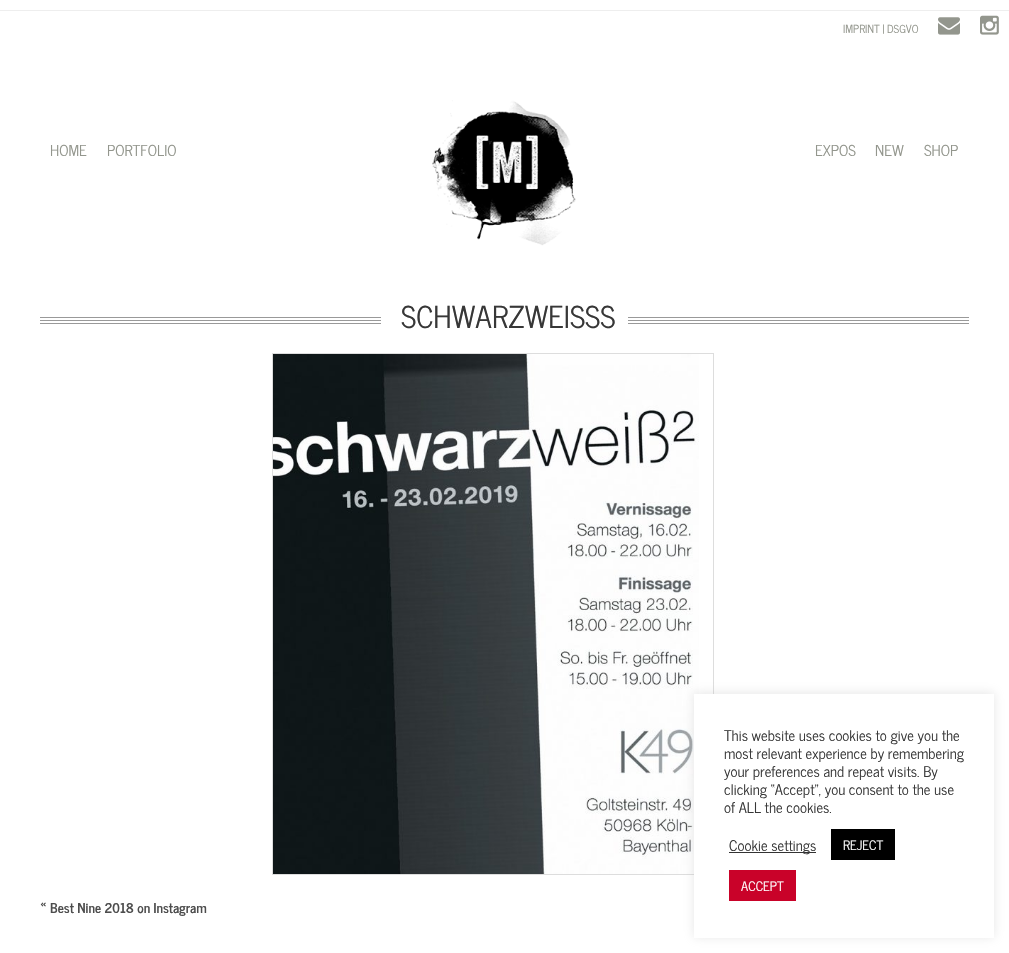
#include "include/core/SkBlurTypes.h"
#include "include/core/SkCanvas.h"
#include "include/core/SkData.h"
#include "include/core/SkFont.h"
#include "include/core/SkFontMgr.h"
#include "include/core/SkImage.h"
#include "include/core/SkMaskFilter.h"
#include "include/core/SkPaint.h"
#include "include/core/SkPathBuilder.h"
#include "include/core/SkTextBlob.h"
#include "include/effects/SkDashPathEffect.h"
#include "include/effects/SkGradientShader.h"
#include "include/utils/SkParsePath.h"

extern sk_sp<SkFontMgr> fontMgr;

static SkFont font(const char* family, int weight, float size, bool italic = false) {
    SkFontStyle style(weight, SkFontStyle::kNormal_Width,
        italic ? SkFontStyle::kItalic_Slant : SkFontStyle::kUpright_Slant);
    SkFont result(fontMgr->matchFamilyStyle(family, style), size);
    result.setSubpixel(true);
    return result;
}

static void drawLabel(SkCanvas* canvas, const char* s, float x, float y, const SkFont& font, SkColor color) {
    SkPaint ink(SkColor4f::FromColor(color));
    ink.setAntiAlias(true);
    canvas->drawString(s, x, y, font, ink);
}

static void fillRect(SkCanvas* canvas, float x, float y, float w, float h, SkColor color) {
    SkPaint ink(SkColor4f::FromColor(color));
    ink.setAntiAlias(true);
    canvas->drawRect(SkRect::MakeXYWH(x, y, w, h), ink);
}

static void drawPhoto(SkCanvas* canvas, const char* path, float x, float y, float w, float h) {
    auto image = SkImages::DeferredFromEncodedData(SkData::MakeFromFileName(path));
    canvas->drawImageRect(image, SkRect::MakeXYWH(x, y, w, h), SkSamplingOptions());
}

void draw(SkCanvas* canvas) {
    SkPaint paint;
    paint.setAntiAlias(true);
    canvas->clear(0xFFFFFFFF);
    fillRect(canvas, 0, 10, 1009, 1, 0xFFEEEEEE);
    SkFont font1 = font("News Cycle", 400, 11);
    drawLabel(canvas, "IMPRINT | DSGVO", 843, 33, font1, 0xFF93968D);
    drawPhoto(canvas, "assets/img1.png", 938, 17, 22, 18);
    drawPhoto(canvas, "assets/img2.png", 980, 15, 19, 20);
    SkFont font2 = font("News Cycle", 400, 15);
    drawLabel(canvas, "HOME", 50, 156, font2, 0xFF93968D);
    drawLabel(canvas, "PORTFOLIO", 107, 156, font2, 0xFF93968D);
    drawPhoto(canvas, "assets/img3.png", 432, 100, 144, 146);
    drawLabel(canvas, "EXPOS", 815, 156, font2, 0xFF93968D);
    drawLabel(canvas, "NEW", 875, 156, font2, 0xFF93968D);
    drawLabel(canvas, "SHOP", 924, 156, font2, 0xFF93968D);
    drawPhoto(canvas, "assets/img4.png", 40, 317, 929, 7);
    fillRect(canvas, 381, 317, 247, 7, 0xFFFFFFFF);
    SkFont font3 = font("News Cycle", 400, 30);
    drawLabel(canvas, "SCHWARZWEISSS", 401, 328, font3, 0xFF373737);
    paint.setStroke(true);
    paint.setStrokeWidth(1);
    paint.setColor(0xFFDDDDDD);
    canvas->drawRect(SkRect::MakeXYWH(272.5f, 353.5f, 441, 521), paint);
    drawPhoto(canvas, "assets/img5.png", 273, 354, 426, 520);
    SkFont font4 = font("News Cycle", 700, 13.5f);
    drawLabel(canvas, "« Best Nine 2018 on Instagram", 40, 913, font4, 0xFF4D4D4D);
    paint.setStroke(false);
    paint.setColor(0x4DACABAB);
    paint.setMaskFilter(SkMaskFilter::MakeBlur(kNormal_SkBlurStyle, 5));
    canvas->drawRect(SkRect::MakeXYWH(694, 693, 300, 244), paint);
    paint.setMaskFilter(nullptr);
    fillRect(canvas, 694, 694, 300, 244, 0xFFFFFFFF);
    SkFont font5 = font("News Cycle", 400, 14.7f);
    drawLabel(canvas, "This website uses cookies to give you the", 724, 741, font5, 0xFF373737);
    drawLabel(canvas, "most relevant experience by remembering", 724, 759, font5, 0xFF373737);
    drawLabel(canvas, "your preferences and repeat visits. By", 724, 777, font5, 0xFF373737);
    drawLabel(canvas, "clicking “Accept”, you consent to the use", 724, 795, font5, 0xFF373737);
    drawLabel(canvas, "of ALL the cookies.", 724, 813, font5, 0xFF373737);
    fillRect(canvas, 729, 852, 87, 1, 0xFF333333);
    drawLabel(canvas, "Cookie settings", 729, 851, font5, 0xFF373737);
    fillRect(canvas, 831, 829, 64, 31, 0xFF000000);
    SkFont font6 = font("News Cycle", 400, 13);
    drawLabel(canvas, "REJECT", 843, 850, font6, 0xFFFFFFFF);
    fillRect(canvas, 729, 870, 67, 31, 0xFFC90229);
    drawLabel(canvas, "ACCEPT", 741, 891, font6, 0xFFFFFFFF);
}
